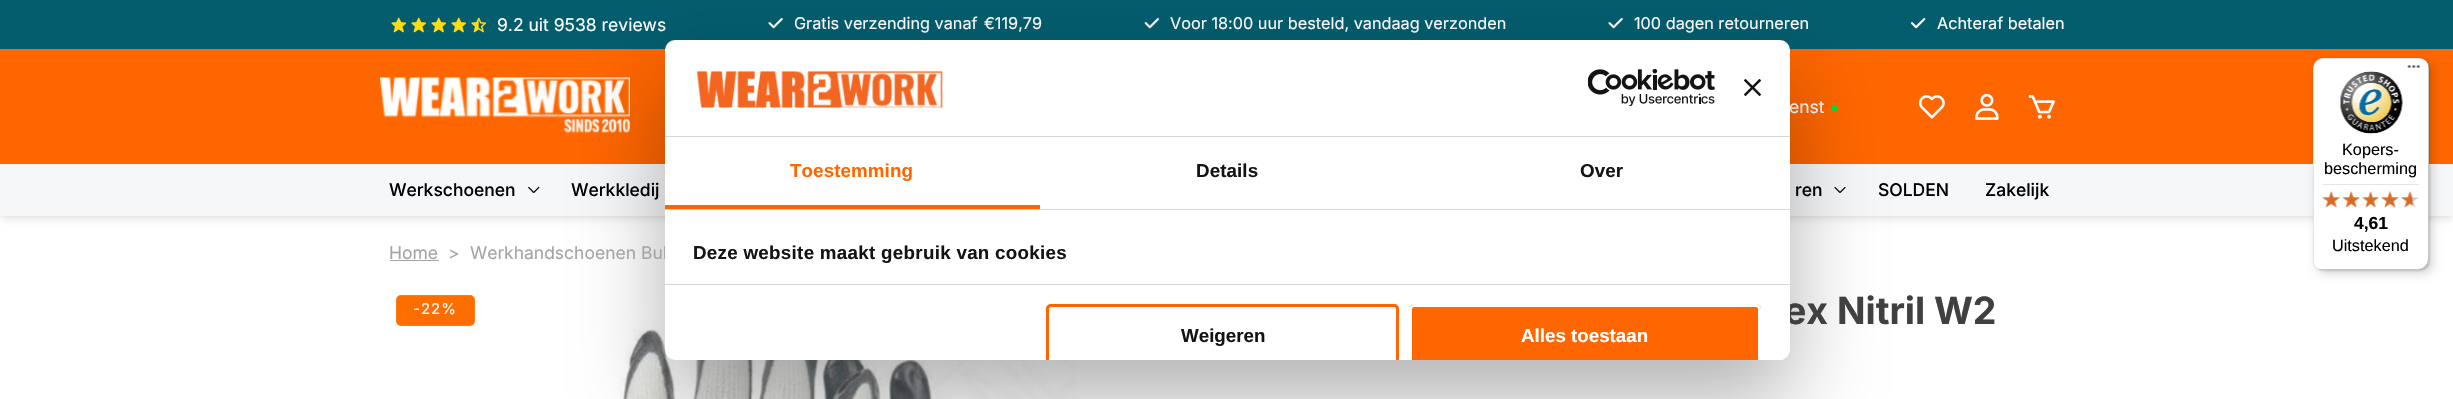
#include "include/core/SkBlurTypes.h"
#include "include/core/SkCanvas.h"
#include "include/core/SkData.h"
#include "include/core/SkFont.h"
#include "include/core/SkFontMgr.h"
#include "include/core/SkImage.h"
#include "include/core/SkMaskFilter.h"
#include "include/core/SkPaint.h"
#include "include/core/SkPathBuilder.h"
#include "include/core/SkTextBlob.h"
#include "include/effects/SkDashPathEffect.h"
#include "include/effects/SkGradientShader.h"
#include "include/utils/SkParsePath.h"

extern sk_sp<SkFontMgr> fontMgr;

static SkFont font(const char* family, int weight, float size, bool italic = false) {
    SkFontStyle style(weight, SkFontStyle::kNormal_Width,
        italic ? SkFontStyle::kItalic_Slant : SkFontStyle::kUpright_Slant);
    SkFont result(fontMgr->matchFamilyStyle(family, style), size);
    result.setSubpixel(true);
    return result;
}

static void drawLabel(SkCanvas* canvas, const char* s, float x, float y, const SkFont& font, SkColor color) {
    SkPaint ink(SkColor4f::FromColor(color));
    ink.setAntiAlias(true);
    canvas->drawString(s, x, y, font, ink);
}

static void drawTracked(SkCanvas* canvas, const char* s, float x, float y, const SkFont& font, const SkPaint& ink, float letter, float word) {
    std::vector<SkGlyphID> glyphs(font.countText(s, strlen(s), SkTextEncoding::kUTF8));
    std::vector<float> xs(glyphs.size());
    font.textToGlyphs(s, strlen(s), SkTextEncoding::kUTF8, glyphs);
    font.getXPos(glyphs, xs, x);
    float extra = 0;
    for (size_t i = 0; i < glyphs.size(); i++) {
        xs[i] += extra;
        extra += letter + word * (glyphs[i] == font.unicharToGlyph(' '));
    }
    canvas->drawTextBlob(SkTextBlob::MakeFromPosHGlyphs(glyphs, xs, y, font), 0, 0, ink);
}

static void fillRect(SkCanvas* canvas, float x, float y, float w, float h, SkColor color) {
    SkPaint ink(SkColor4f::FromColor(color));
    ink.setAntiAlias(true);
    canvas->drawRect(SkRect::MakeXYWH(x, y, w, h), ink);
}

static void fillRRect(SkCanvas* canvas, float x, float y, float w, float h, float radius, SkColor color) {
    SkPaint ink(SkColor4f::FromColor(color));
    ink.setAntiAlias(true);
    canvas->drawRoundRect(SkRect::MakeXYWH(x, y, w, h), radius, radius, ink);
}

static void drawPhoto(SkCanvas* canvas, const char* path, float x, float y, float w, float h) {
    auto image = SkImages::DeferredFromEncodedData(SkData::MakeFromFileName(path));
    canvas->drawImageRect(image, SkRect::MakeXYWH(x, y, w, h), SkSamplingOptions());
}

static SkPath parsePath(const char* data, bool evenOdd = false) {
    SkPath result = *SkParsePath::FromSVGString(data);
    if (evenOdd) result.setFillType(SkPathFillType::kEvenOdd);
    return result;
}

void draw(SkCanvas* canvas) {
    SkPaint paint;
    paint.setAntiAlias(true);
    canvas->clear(0xFFFFFFFF);
    fillRect(canvas, 0, 0, 2453, 49, 0xFF045D6D);
    drawPhoto(canvas, "assets/img1.png", 391, 17, 15, 16);
    drawPhoto(canvas, "assets/img1.png", 411, 17, 15, 16);
    drawPhoto(canvas, "assets/img1.png", 431, 17, 15, 16);
    drawPhoto(canvas, "assets/img1.png", 451, 17, 15, 16);
    drawPhoto(canvas, "assets/img2.png", 471, 17, 15, 16);
    SkFont font1 = font("Inter", 400, 17.5f);
    drawLabel(canvas, "9.2 uit 9538 reviews", 497, 31, font1, 0xFFFFFFFF);
    drawPhoto(canvas, "assets/img3.png", 768, 18, 15, 11);
    SkFont font2 = font("Inter", 400, 16.25f);
    drawLabel(canvas, "Gratis verzending vanaf", 794, 29, font2, 0xFFFFFFFF);
    drawLabel(canvas, "€119,79", 984, 29, font2, 0xFFFFFFFF);
    drawPhoto(canvas, "assets/img4.png", 1144, 18, 15, 11);
    drawLabel(canvas, "Voor 18:00 uur besteld, vandaag verzonden", 1170, 29, font2, 0xFFFFFFFF);
    drawPhoto(canvas, "assets/img3.png", 1608, 18, 15, 11);
    drawLabel(canvas, "100 dagen retourneren", 1634, 29, font2, 0xFFFFFFFF);
    drawPhoto(canvas, "assets/img5.png", 1911, 18, 15, 11);
    drawLabel(canvas, "Achteraf betalen", 1937, 29, font2, 0xFFFFFFFF);
    fillRect(canvas, 0, 49, 2453, 115, 0xFFFF6600);
    drawPhoto(canvas, "assets/img6.png", 380, 77, 250, 57);
    drawLabel(canvas, "enst", 1789, 113, font1, 0xFFFFFFFF);
    fillRRect(canvas, 1831, 105, 7, 6, 3, 0xFF00E138);
    drawPhoto(canvas, "assets/img7.png", 1918, 95, 27, 24);
    drawPhoto(canvas, "assets/img8.png", 1975, 93, 24, 27);
    drawPhoto(canvas, "assets/img9.png", 2028, 95, 27, 24);
    paint.setColor(0x12000000);
    paint.setMaskFilter(SkMaskFilter::MakeBlur(kNormal_SkBlurStyle, 2.5f));
    canvas->drawRect(SkRect::MakeXYWH(3, 169, 2448, 47), paint);
    paint.setMaskFilter(nullptr);
    paint.setMaskFilter(SkMaskFilter::MakeBlur(kNormal_SkBlurStyle, 4));
    canvas->drawRect(SkRect::MakeXYWH(1, 170, 2452, 50), paint);
    paint.setMaskFilter(nullptr);
    fillRect(canvas, 0, 164, 2453, 52, 0xFFF6F7F9);
    SkFont font3 = font("Inter", 500, 17.5f);
    drawLabel(canvas, "Werkschoenen", 389, 196, font3, 0xFF000000);
    drawPhoto(canvas, "assets/img10.png", 528, 186, 12, 8);
    drawLabel(canvas, "Werkkledij", 571, 196, font3, 0xFF000000);
    drawLabel(canvas, "ren", 1795, 196, font3, 0xFF000000);
    drawPhoto(canvas, "assets/img11.png", 1834, 187, 12, 6);
    drawLabel(canvas, "SOLDEN", 1878, 196, font3, 0xFF000000);
    drawLabel(canvas, "Zakelijk", 1985, 196, font3, 0xFF000000);
    paint.setColor(0x26000000);
    paint.setMaskFilter(SkMaskFilter::MakeBlur(kNormal_SkBlurStyle, 5));
    canvas->drawRoundRect(SkRect::MakeXYWH(2316, 61, 117, 213), 10, 10, paint);
    paint.setMaskFilter(nullptr);
    paint.setMaskFilter(SkMaskFilter::MakeBlur(kNormal_SkBlurStyle, 1));
    canvas->drawRoundRect(SkRect::MakeXYWH(2314, 59, 116, 212), 10, 10, paint);
    paint.setMaskFilter(nullptr);
    fillRRect(canvas, 2313, 58, 116, 212, 10, 0xFFFFFFFF);
    paint.setColor(0x1A000000);
    canvas->drawPath(parsePath("M2324 59H2420C2422 59 2424 59 2425 60C2424 59 2421 58 2419 58H2323C2317 58 2313 62 2313 68V260C2313 262 2314 265 2315 266C2314 265 2314 263 2314 261V69C2314 63 2318 59 2324 59Z"), paint);
    paint.setColor(0x33000000);
    canvas->drawPath(parsePath("M2317 268C2319 269 2321 270 2323 270H2419C2425 270 2429 266 2429 260V68C2429 66 2428 64 2427 62C2428 63 2428 65 2428 66V259C2428 264 2423 269 2418 269H2321C2320 269 2318 269 2317 268Z"), paint);
    paint.setColor(0x33323232);
    canvas->drawPath(parsePath("M2317 268C2318 269 2321 270 2323 270H2419C2425 270 2429 266 2429 260V68C2429 66 2428 63 2427 62C2428 63 2428 65 2428 67V259C2428 265 2424 269 2418 269H2322C2320 269 2318 269 2317 268Z"), paint);
    paint.setColor(0x4DFFFFFF);
    canvas->drawPath(parsePath("M2317 268C2318 269 2321 270 2323 270H2419C2425 270 2429 266 2429 260V68C2429 66 2428 63 2427 62C2428 63 2428 65 2428 67V259C2428 265 2424 269 2418 269H2322C2320 269 2318 269 2317 268Z"), paint);
    drawPhoto(canvas, "assets/img12.png", 2407, 65, 13, 3);
    drawPhoto(canvas, "assets/img13.png", 2340, 71, 63, 63);
    SkFont font4 = font("Liberation Sans", 400, 16.25f);
    drawLabel(canvas, "Kopers-", 2342, 155, font4, 0xFF000000);
    drawLabel(canvas, "bescherming", 2324, 174, font4, 0xFF000000);
    fillRect(canvas, 2323, 184, 96, 1, 0xFFE5E5E5);
    drawPhoto(canvas, "assets/img14.png", 2322, 192, 18, 15);
    drawPhoto(canvas, "assets/img15.png", 2343, 191, 17, 17);
    drawPhoto(canvas, "assets/img16.png", 2362, 192, 17, 15);
    drawPhoto(canvas, "assets/img17.png", 2381, 191, 18, 17);
    drawPhoto(canvas, "assets/img18.png", 2401, 192, 18, 15);
    drawPhoto(canvas, "assets/img19.png", 2322, 191, 18, 17);
    drawPhoto(canvas, "assets/img20.png", 2342, 191, 18, 17);
    drawPhoto(canvas, "assets/img21.png", 2362, 191, 17, 17);
    drawPhoto(canvas, "assets/img22.png", 2381, 191, 18, 17);
    drawPhoto(canvas, "assets/img23.png", 2401, 191, 12, 17);
    SkFont font5 = font("Liberation Sans", 700, 17.5f);
    drawLabel(canvas, "4,61", 2354, 229, font5, 0xFF000000);
    drawLabel(canvas, "Uitstekend", 2332, 251, font4, 0xFF000000);
    drawPhoto(canvas, "assets/img27.png", 619, 289, 457, 110);
    paint.setColor(0x4D000000);
    paint.setMaskFilter(SkMaskFilter::MakeBlur(kNormal_SkBlurStyle, 42.5f));
    canvas->drawRoundRect(SkRect::MakeXYWH(665, 80, 1125, 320), 10, 10, paint);
    paint.setMaskFilter(nullptr);
    drawLabel(canvas, "Werkhandschoenen Bul", 470, 259, font1, 0xFFA4A4A4);
    SkFont font6 = font("Inter", 700, 37.5f);
    drawLabel(canvas, "ex Nitril W2", 1784, 324, font6, 0xFF404040);
    fillRRect(canvas, 665, 40, 1125, 320, 10, 0xFFFFFFFF);
    fillRect(canvas, 665, 136, 1125, 1, 0xFFD6D6D6);
    drawPhoto(canvas, "assets/img24.png", 696, 71, 247, 37);
    drawPhoto(canvas, "assets/img25.png", 1588, 69, 127, 37);
    drawPhoto(canvas, "assets/img26.png", 1744, 79, 17, 17);
    fillRect(canvas, 665, 209, 1125, 1, 0xFFD6D6D6);
    fillRect(canvas, 665, 205, 375, 4, 0xFFFF6600);
    SkFont font7 = font("Liberation Sans", 700, 18.75f);
    paint.setColor(0xFFFF6600);
    drawTracked(canvas, "Toestemming", 790, 177, font7, paint, 0.1f, 0);
    paint.setColor(0xFF141414);
    drawTracked(canvas, "Details", 1196, 177, font7, paint, 0.1f, 0);
    drawTracked(canvas, "Over", 1580, 177, font7, paint, 0.1f, 0);
    fillRect(canvas, 665, 284, 1125, 1, 0xFFD6D6D6);
    drawTracked(canvas, "Deze website maakt gebruik van cookies", 693, 259, font7, paint, 0.3f, 0);
    paint.setColor(0xFFFF6600);
    canvas->drawPath(parsePath("M1051 304C1048 304 1046 306 1046 309V360H1049V309C1049 308 1050 307 1051 307H1394C1395 307 1396 308 1396 309V360H1399V309C1399 306 1397 304 1394 304Z"), paint);
    drawLabel(canvas, "Weigeren", 1181, 342, font7, 0xFF141414);
    canvas->drawPath(parsePath("M1414 304H1756C1759 304 1761 306 1761 309V360H1409V309C1409 306 1411 304 1414 304Z"), paint);
    paint.setColor(0xFFFFFFFF);
    canvas->drawPath(parsePath("M1414 304C1411 304 1409 306 1409 309V360H1412V309C1412 308 1413 307 1414 307H1756C1757 307 1758 308 1758 309V360H1761V309C1761 306 1759 304 1756 304Z"), paint);
    drawLabel(canvas, "Alles toestaan", 1521, 342, font7, 0xFFFFFFFF);
    fillRect(canvas, 1781, 359, 2, 1, 0xFFFFFFFF);
    drawLabel(canvas, "Home", 389, 259, font1, 0xFFA4A4A4);
    fillRect(canvas, 390, 260, 49, 1, 0xFFA4A4A4);
    drawLabel(canvas, ">", 448, 259, font1, 0xFFA4A4A4);
    fillRRect(canvas, 396, 295, 79, 31, 5, 0xFFFD6D00);
    paint.setStroke(true);
    paint.setStrokeWidth(1);
    paint.setColor(0x1AFFFFFF);
    canvas->drawRoundRect(SkRect::MakeXYWH(396.5f, 295.5f, 78, 30), 4.5f, 4.5f, paint);
    SkFont font8 = font("Inter", 400, 15);
    paint.setStroke(false);
    paint.setColor(0xFFFFFFFF);
    drawTracked(canvas, "-22%", 413, 314, font8, paint, 1, 0);
}
